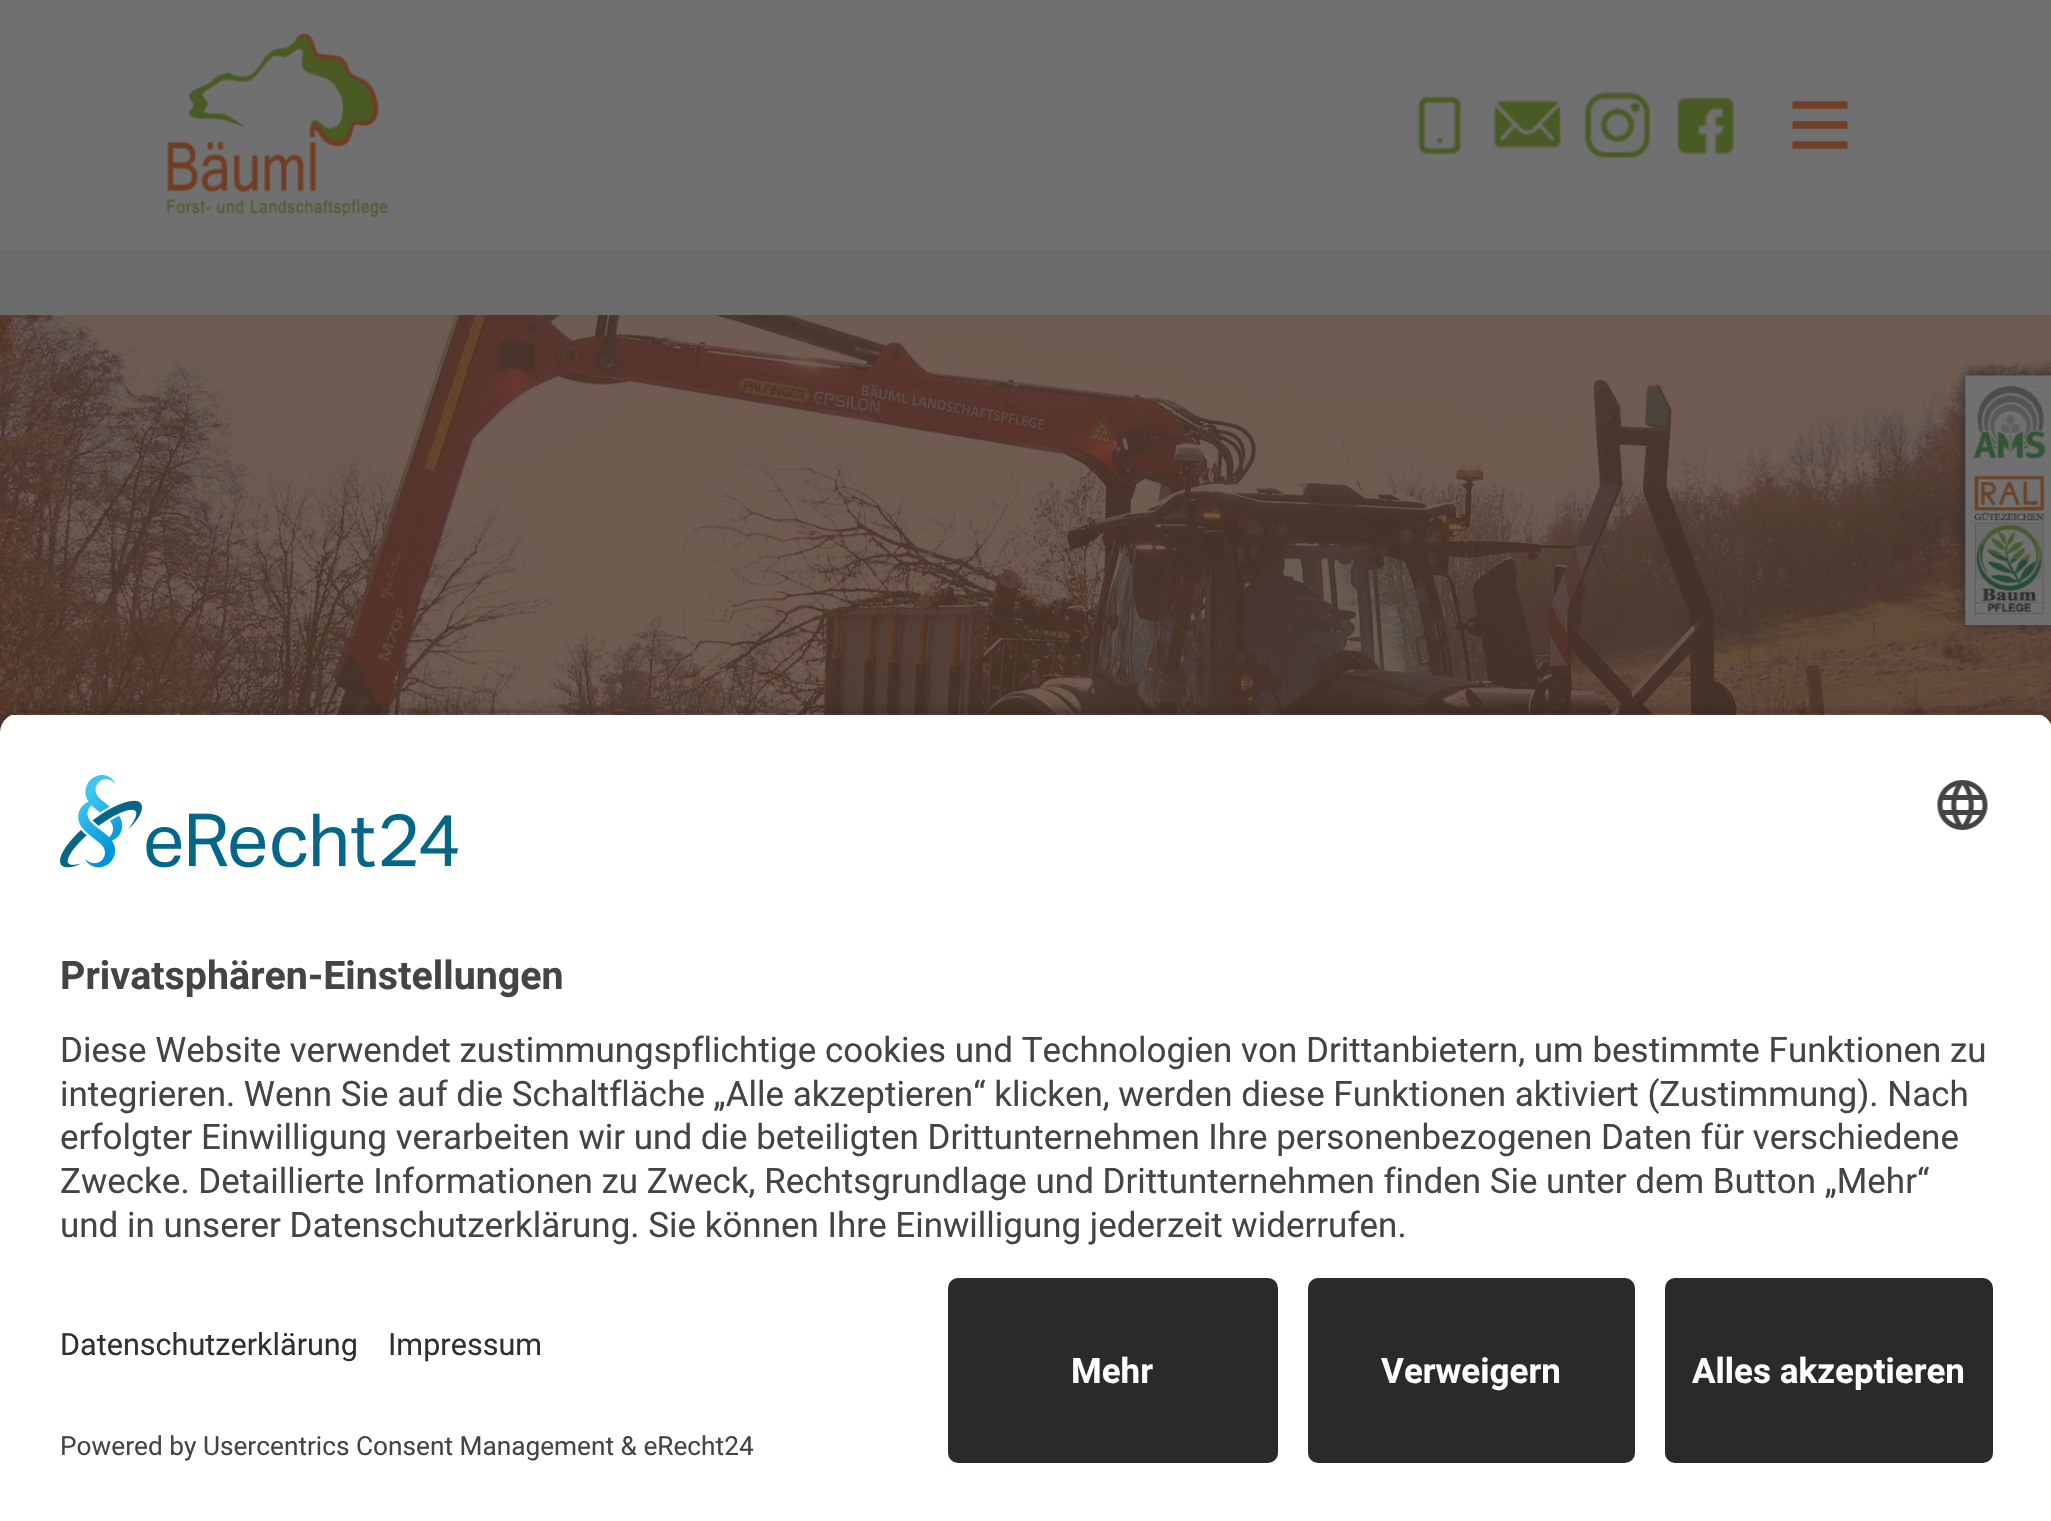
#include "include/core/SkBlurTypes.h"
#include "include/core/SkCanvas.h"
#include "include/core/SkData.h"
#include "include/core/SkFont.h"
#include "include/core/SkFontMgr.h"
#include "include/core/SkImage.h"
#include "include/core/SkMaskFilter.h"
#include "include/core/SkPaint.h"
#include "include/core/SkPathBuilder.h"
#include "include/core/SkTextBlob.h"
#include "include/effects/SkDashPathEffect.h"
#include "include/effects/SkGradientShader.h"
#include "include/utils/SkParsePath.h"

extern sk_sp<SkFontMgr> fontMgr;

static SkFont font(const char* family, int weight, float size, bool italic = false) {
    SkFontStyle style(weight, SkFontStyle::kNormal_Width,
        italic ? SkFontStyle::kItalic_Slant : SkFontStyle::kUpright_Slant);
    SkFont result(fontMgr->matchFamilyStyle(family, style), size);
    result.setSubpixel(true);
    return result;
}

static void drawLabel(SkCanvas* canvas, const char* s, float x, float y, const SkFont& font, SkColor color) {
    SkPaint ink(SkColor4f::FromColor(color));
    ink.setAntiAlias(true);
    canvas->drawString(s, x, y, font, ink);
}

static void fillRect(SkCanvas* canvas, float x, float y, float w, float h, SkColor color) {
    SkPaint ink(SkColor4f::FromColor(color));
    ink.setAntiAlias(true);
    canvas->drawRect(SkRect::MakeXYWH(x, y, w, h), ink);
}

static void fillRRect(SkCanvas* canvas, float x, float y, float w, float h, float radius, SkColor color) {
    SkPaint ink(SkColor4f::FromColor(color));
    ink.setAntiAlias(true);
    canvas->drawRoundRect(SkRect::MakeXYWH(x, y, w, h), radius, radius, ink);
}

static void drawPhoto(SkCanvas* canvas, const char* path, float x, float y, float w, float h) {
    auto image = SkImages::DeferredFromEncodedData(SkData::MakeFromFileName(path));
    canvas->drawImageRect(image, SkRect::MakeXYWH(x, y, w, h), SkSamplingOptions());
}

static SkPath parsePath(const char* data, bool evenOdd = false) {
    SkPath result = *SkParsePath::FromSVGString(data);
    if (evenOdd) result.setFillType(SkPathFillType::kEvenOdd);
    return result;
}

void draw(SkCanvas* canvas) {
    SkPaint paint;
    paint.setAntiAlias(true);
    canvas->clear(0xFF6B6B6C);
    fillRect(canvas, 0, 0, 2051, 250, 0xFF707070);
    drawPhoto(canvas, "assets/img1.png", 166, 33, 223, 185);
    drawPhoto(canvas, "assets/img2.png", 1417, 95, 45, 60);
    drawPhoto(canvas, "assets/img3.png", 1492, 100, 69, 50);
    drawPhoto(canvas, "assets/img4.png", 1584, 91, 67, 68);
    drawPhoto(canvas, "assets/img5.png", 1677, 97, 58, 58);
    paint.setStroke(true);
    paint.setStrokeWidth(7.5f);
    paint.setColor(0xFF703F29);
    canvas->drawPath(parsePath("M1792.5 105H1847.5M1792.5 125H1847.5M1792.5 145H1847.5"), paint);
    drawPhoto(canvas, "assets/img6.png", 0, 315, 2051, 418);
    fillRect(canvas, 0, 315, 2051, 418, 0x66703D24);
    paint.setStroke(false);
    paint.setColor(0xBF242424);
    paint.setMaskFilter(SkMaskFilter::MakeBlur(kNormal_SkBlurStyle, 6));
    canvas->drawRect(SkRect::MakeXYWH(1965, 375, 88, 250), paint);
    paint.setMaskFilter(nullptr);
    drawPhoto(canvas, "assets/img7.png", 1965, 375, 86, 251);
    canvas->save();
    canvas->clipPath(parsePath("M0 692H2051V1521H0ZM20 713H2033C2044 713 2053 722 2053 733V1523H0V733C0 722 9 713 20 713Z", true), true);
    paint.setColor(0xCC000000);
    paint.setMaskFilter(SkMaskFilter::MakeBlur(kNormal_SkBlurStyle, 9));
    canvas->drawRoundRect(SkRect::MakeXYWH(0, 720, 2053, 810), 20, 20, paint);
    paint.setMaskFilter(nullptr);
    canvas->restore();
    canvas->save();
    canvas->clipPath(parsePath("M20 713H2033C2044 713 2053 722 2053 733V1258H0V733C0 722 9 713 20 713Z"), true);
    fillRect(canvas, 0, 715, 2051, 543, 0xFFFFFFFF);
    canvas->restore();
    drawPhoto(canvas, "assets/img8.png", 60, 775, 398, 93);
    drawPhoto(canvas, "assets/img9.png", 1937, 780, 51, 50);
    SkFont font1 = font("Roboto", 700, 39.4f);
    drawLabel(canvas, "Privatsphären-Einstellungen", 60, 989, font1, 0xFF444444);
    SkFont font2 = font("Roboto", 400, 35);
    drawLabel(canvas, "Diese Website verwendet zustimmungspflichtige cookies und Technologien von Drittanbietern, um bestimmte Funktionen zu", 60, 1062, font2, 0xFF444444);
    drawLabel(canvas, "integrieren. Wenn Sie auf die Schaltfläche „Alle akzeptieren“ klicken, werden diese Funktionen aktiviert (Zustimmung). Nach", 60, 1106, font2, 0xFF444444);
    drawLabel(canvas, "erfolgter Einwilligung verarbeiten wir und die beteiligten Drittunternehmen Ihre personenbezogenen Daten für verschiedene", 60, 1149, font2, 0xFF444444);
    drawLabel(canvas, "Zwecke. Detaillierte Informationen zu Zweck, Rechtsgrundlage und Drittunternehmen finden Sie unter dem Button „Mehr“", 60, 1193, font2, 0xFF444444);
    drawLabel(canvas, "und in unserer Datenschutzerklärung. Sie können Ihre Einwilligung jederzeit widerrufen.", 60, 1237, font2, 0xFF444444);
    fillRect(canvas, 0, 1258, 2051, 263, 0xFFFFFFFF);
    SkFont font3 = font("Roboto", 400, 30.6f);
    drawLabel(canvas, "Datenschutzerklärung", 60, 1355, font3, 0xFF303030);
    drawLabel(canvas, "Impressum", 388, 1355, font3, 0xFF303030);
    SkFont font4 = font("Roboto", 400, 26.25f);
    drawLabel(canvas, "Powered by Usercentrics Consent Management & eRecht24", 60, 1455, font4, 0xFF444444);
    fillRRect(canvas, 948, 1278, 330, 185, 10, 0xFF292A2B);
    SkFont font5 = font("Roboto", 700, 35);
    drawLabel(canvas, "Mehr", 1071, 1383, font5, 0xFFFFFFFF);
    fillRRect(canvas, 1308, 1278, 327, 185, 10, 0xFF292A2B);
    drawLabel(canvas, "Verweigern", 1381, 1383, font5, 0xFFFFFFFF);
    fillRRect(canvas, 1665, 1278, 328, 185, 10, 0xFF292A2B);
    drawLabel(canvas, "Alles akzeptieren", 1692, 1383, font5, 0xFFFFFFFF);
}
